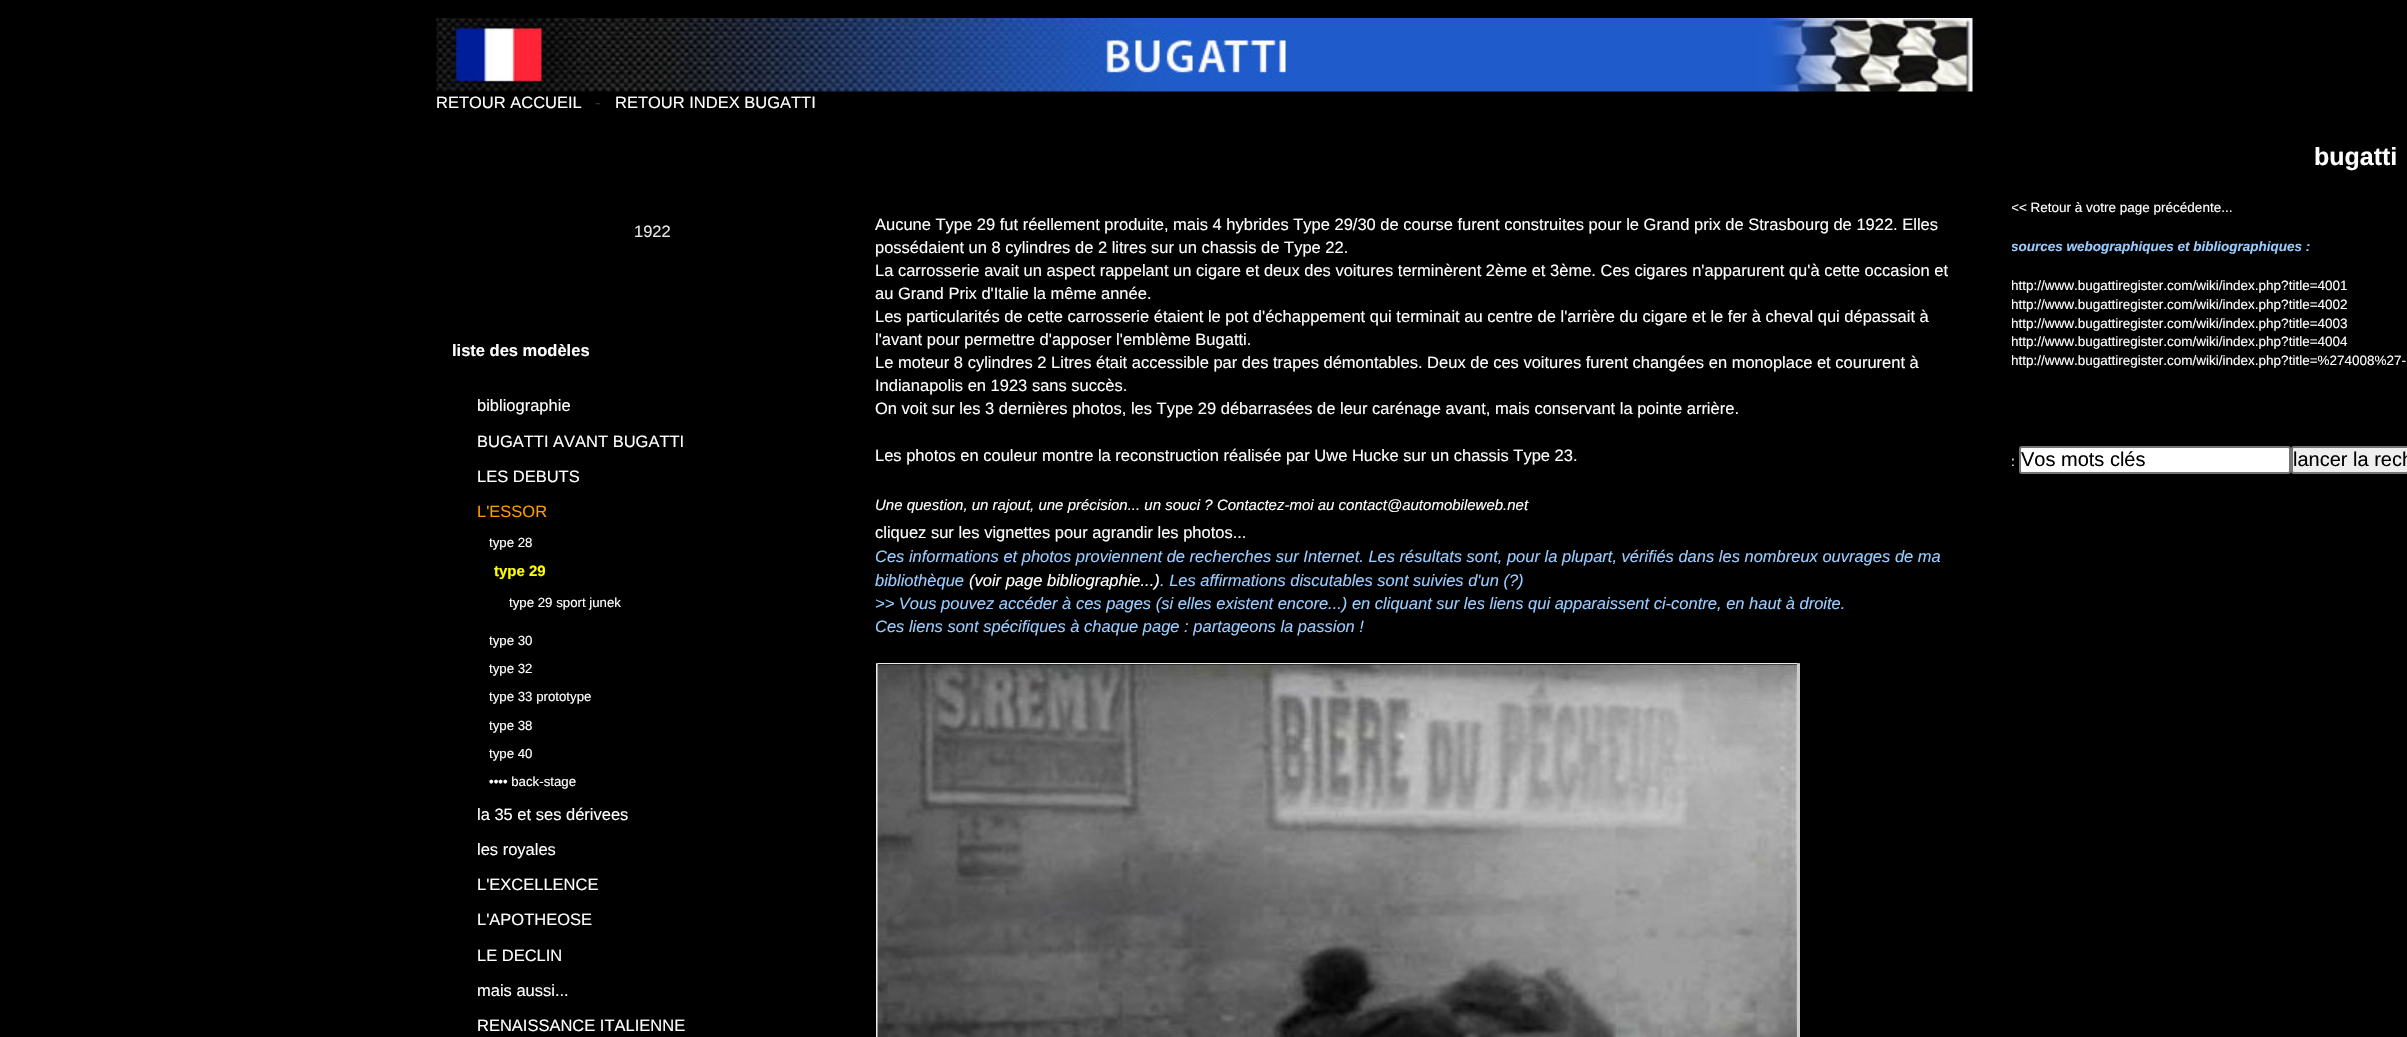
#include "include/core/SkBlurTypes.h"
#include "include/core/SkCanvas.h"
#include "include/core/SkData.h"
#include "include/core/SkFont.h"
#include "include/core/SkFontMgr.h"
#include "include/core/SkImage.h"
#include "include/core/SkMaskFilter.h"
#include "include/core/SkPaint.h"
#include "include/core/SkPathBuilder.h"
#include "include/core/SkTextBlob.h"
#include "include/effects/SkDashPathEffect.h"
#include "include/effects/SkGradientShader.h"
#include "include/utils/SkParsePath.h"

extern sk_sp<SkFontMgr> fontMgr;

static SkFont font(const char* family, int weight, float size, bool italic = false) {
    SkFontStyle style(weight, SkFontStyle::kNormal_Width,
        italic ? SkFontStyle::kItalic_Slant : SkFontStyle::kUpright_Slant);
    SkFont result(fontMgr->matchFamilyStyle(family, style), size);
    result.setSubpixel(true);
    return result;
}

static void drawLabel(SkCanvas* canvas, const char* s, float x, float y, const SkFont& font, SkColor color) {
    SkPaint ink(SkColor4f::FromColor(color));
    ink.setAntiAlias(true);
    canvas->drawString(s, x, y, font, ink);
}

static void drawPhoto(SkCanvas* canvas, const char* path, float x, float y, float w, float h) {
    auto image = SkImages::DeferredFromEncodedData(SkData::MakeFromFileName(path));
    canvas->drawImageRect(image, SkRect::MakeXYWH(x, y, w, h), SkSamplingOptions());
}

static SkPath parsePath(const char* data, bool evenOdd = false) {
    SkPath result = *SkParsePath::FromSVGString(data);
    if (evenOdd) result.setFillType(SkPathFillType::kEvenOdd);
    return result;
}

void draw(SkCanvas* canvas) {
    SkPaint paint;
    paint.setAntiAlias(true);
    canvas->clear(0xFF000000);
    drawPhoto(canvas, "assets/img1.png", 436, 18, 1537, 74);
    SkFont font1 = font("Liberation Sans", 400, 16.5f);
    drawLabel(canvas, "RETOUR ACCUEIL", 436, 108, font1, 0xFFFFFFFF);
    drawLabel(canvas, "-", 595, 108, font1, 0xFF333333);
    drawLabel(canvas, "RETOUR INDEX BUGATTI", 615, 108, font1, 0xFFFFFFFF);
    SkFont font2 = font("Liberation Sans", 700, 25);
    drawLabel(canvas, "bugatti", 2314, 165, font2, 0xFFFFFFFF);
    drawLabel(canvas, "1922", 634, 237, font1, 0xFFE6E6E6);
    drawLabel(canvas, "Aucune Type 29 fut réellement produite, mais 4 hybrides Type 29/30 de course furent construites pour le Grand prix de Strasbourg de 1922. Elles", 875, 230, font1, 0xFFFFFFFF);
    drawLabel(canvas, "possédaient un 8 cylindres de 2 litres sur un chassis de Type 22.", 875, 253, font1, 0xFFFFFFFF);
    drawLabel(canvas, "La carrosserie avait un aspect rappelant un cigare et deux des voitures terminèrent 2ème et 3ème. Ces cigares n'apparurent qu'à cette occasion et", 875, 276, font1, 0xFFFFFFFF);
    drawLabel(canvas, "au Grand Prix d'Italie la même année.", 875, 299, font1, 0xFFFFFFFF);
    drawLabel(canvas, "Les particularités de cette carrosserie étaient le pot d'échappement qui terminait au centre de l'arrière du cigare et le fer à cheval qui dépassait à", 875, 322, font1, 0xFFFFFFFF);
    drawLabel(canvas, "l'avant pour permettre d'apposer l'emblème Bugatti.", 875, 345, font1, 0xFFFFFFFF);
    drawLabel(canvas, "Le moteur 8 cylindres 2 Litres était accessible par des trapes démontables. Deux de ces voitures furent changées en monoplace et coururent à", 875, 368, font1, 0xFFFFFFFF);
    drawLabel(canvas, "Indianapolis en 1923 sans succès.", 875, 391, font1, 0xFFFFFFFF);
    drawLabel(canvas, "On voit sur les 3 dernières photos, les Type 29 débarrasées de leur carénage avant, mais conservant la pointe arrière.", 875, 414, font1, 0xFFFFFFFF);
    drawLabel(canvas, "Les photos en couleur montre la reconstruction réalisée par Uwe Hucke sur un chassis Type 23.", 875, 461, font1, 0xFFFFFFFF);
    SkFont font3 = font("Liberation Sans", 400, 15, true);
    drawLabel(canvas, "Une question, un rajout, une précision... un souci ? Contactez-moi au contact@automobileweb.net", 875, 510, font3, 0xFFFFFFFF);
    drawLabel(canvas, "cliquez sur les vignettes pour agrandir les photos...", 875, 538, font1, 0xFFFFFFFF);
    SkFont font4 = font("Liberation Sans", 400, 16.5f, true);
    drawLabel(canvas, "Ces informations et photos proviennent de recherches sur Internet. Les résultats sont, pour la plupart, vérifiés dans les nombreux ouvrages de ma", 875, 562, font4, 0xFF99CCFF);
    drawLabel(canvas, "bibliothèque", 875, 586, font4, 0xFF99CCFF);
    drawLabel(canvas, "(voir page bibliographie...)", 969, 586, font4, 0xFFFFFFFF);
    drawLabel(canvas, ". Les affirmations discutables sont suivies d'un (?)", 1160, 586, font4, 0xFF99CCFF);
    drawLabel(canvas, ">> Vous pouvez accéder à ces pages (si elles existent encore...) en cliquant sur les liens qui apparaissent ci-contre, en haut à droite.", 875, 609, font4, 0xFF99CCFF);
    drawLabel(canvas, "Ces liens sont spécifiques à chaque page : partageons la passion !", 875, 632, font4, 0xFF99CCFF);
    paint.setColor(0xFFEEEEEE);
    canvas->drawPath(parsePath("M876 663H1800L1797 664H878Z"), paint);
    canvas->drawPath(parsePath("M876 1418V663L878 664V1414Z"), paint);
    paint.setColor(0xFFCCCCCC);
    canvas->drawPath(parsePath("M1800 663V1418L1797 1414V664Z"), paint);
    drawPhoto(canvas, "assets/img2.png", 877, 664, 920, 373);
    canvas->save();
    canvas->clipRect(SkRect::MakeXYWH(2012, 198, 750, 450));
    SkFont font5 = font("Liberation Sans", 400, 13.5f);
    drawLabel(canvas, "<< Retour à votre page précédente...", 2011, 212, font5, 0xFFFFFFFF);
    SkFont font6 = font("Liberation Sans", 700, 13.5f, true);
    drawLabel(canvas, "sources webographiques et bibliographiques :", 2011, 251, font6, 0xFF99CCFF);
    drawLabel(canvas, "http://www.bugattiregister.com/wiki/index.php?title=4001", 2011, 290, font5, 0xFFFFFFFF);
    drawLabel(canvas, "http://www.bugattiregister.com/wiki/index.php?title=4002", 2011, 309, font5, 0xFFFFFFFF);
    drawLabel(canvas, "http://www.bugattiregister.com/wiki/index.php?title=4003", 2011, 328, font5, 0xFFFFFFFF);
    drawLabel(canvas, "http://www.bugattiregister.com/wiki/index.php?title=4004", 2011, 346, font5, 0xFFFFFFFF);
    drawLabel(canvas, "http://www.bugattiregister.com/wiki/index.php?title=%274008%27-", 2011, 365, font5, 0xFFFFFFFF);
    canvas->restore();
    drawLabel(canvas, ":", 2011, 466, font5, 0xFFFFFFFF);
    paint.setColor(0xFFFFFFFF);
    canvas->drawRoundRect(SkRect::MakeXYWH(2020, 447, 270, 26), 2, 2, paint);
    paint.setStroke(true);
    paint.setStrokeWidth(2);
    paint.setColor(0xFF767676);
    canvas->drawRoundRect(SkRect::MakeXYWH(2020, 447, 270, 26), 2, 2, paint);
    SkFont font7 = font("Liberation Sans", 400, 20);
    drawLabel(canvas, "Vos mots clés", 2021, 466, font7, 0xFF000000);
    paint.setStroke(false);
    paint.setColor(0xFFEFEFEF);
    canvas->drawRoundRect(SkRect::MakeXYWH(2292, 447, 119, 26), 2, 2, paint);
    paint.setStroke(true);
    paint.setColor(0xFF767676);
    canvas->drawRoundRect(SkRect::MakeXYWH(2292, 447, 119, 26), 2, 2, paint);
    drawLabel(canvas, "lancer la rech", 2293, 466, font7, 0xFF000000);
    SkFont font8 = font("Liberation Sans", 700, 16.5f);
    drawLabel(canvas, "liste des modèles", 452, 356, font8, 0xFFFFFFFF);
    drawLabel(canvas, "bibliographie", 477, 411, font1, 0xFFFFFFFF);
    drawLabel(canvas, "BUGATTI AVANT BUGATTI", 477, 447, font1, 0xFFFFFFFF);
    drawLabel(canvas, "LES DEBUTS", 477, 482, font1, 0xFFFFFFFF);
    drawLabel(canvas, "L'ESSOR", 477, 517, font1, 0xFFFF9900);
    SkFont font9 = font("Liberation Sans", 400, 13.25f);
    drawLabel(canvas, "type 28", 489, 547, font9, 0xFFFFFFFF);
    SkFont font10 = font("Liberation Sans", 700, 15);
    drawLabel(canvas, "type 29", 494, 576, font10, 0xFFFFFF00);
    drawLabel(canvas, "type 29 sport junek", 509, 607, font9, 0xFFFFFFFF);
    drawLabel(canvas, "type 30", 489, 645, font9, 0xFFFFFFFF);
    drawLabel(canvas, "type 32", 489, 673, font9, 0xFFFFFFFF);
    drawLabel(canvas, "type 33 prototype", 489, 701, font9, 0xFFFFFFFF);
    drawLabel(canvas, "type 38", 489, 730, font9, 0xFFFFFFFF);
    drawLabel(canvas, "type 40", 489, 758, font9, 0xFFFFFFFF);
    drawLabel(canvas, "•••• back-stage", 489, 786, font9, 0xFFFFFFFF);
    drawLabel(canvas, "la 35 et ses dérivees", 477, 820, font1, 0xFFFFFFFF);
    drawLabel(canvas, "les royales", 477, 855, font1, 0xFFFFFFFF);
    drawLabel(canvas, "L'EXCELLENCE", 477, 890, font1, 0xFFFFFFFF);
    drawLabel(canvas, "L'APOTHEOSE", 477, 925, font1, 0xFFFFFFFF);
    drawLabel(canvas, "LE DECLIN", 477, 961, font1, 0xFFFFFFFF);
    drawLabel(canvas, "mais aussi...", 477, 996, font1, 0xFFFFFFFF);
    drawLabel(canvas, "RENAISSANCE ITALIENNE", 477, 1031, font1, 0xFFFFFFFF);
}
